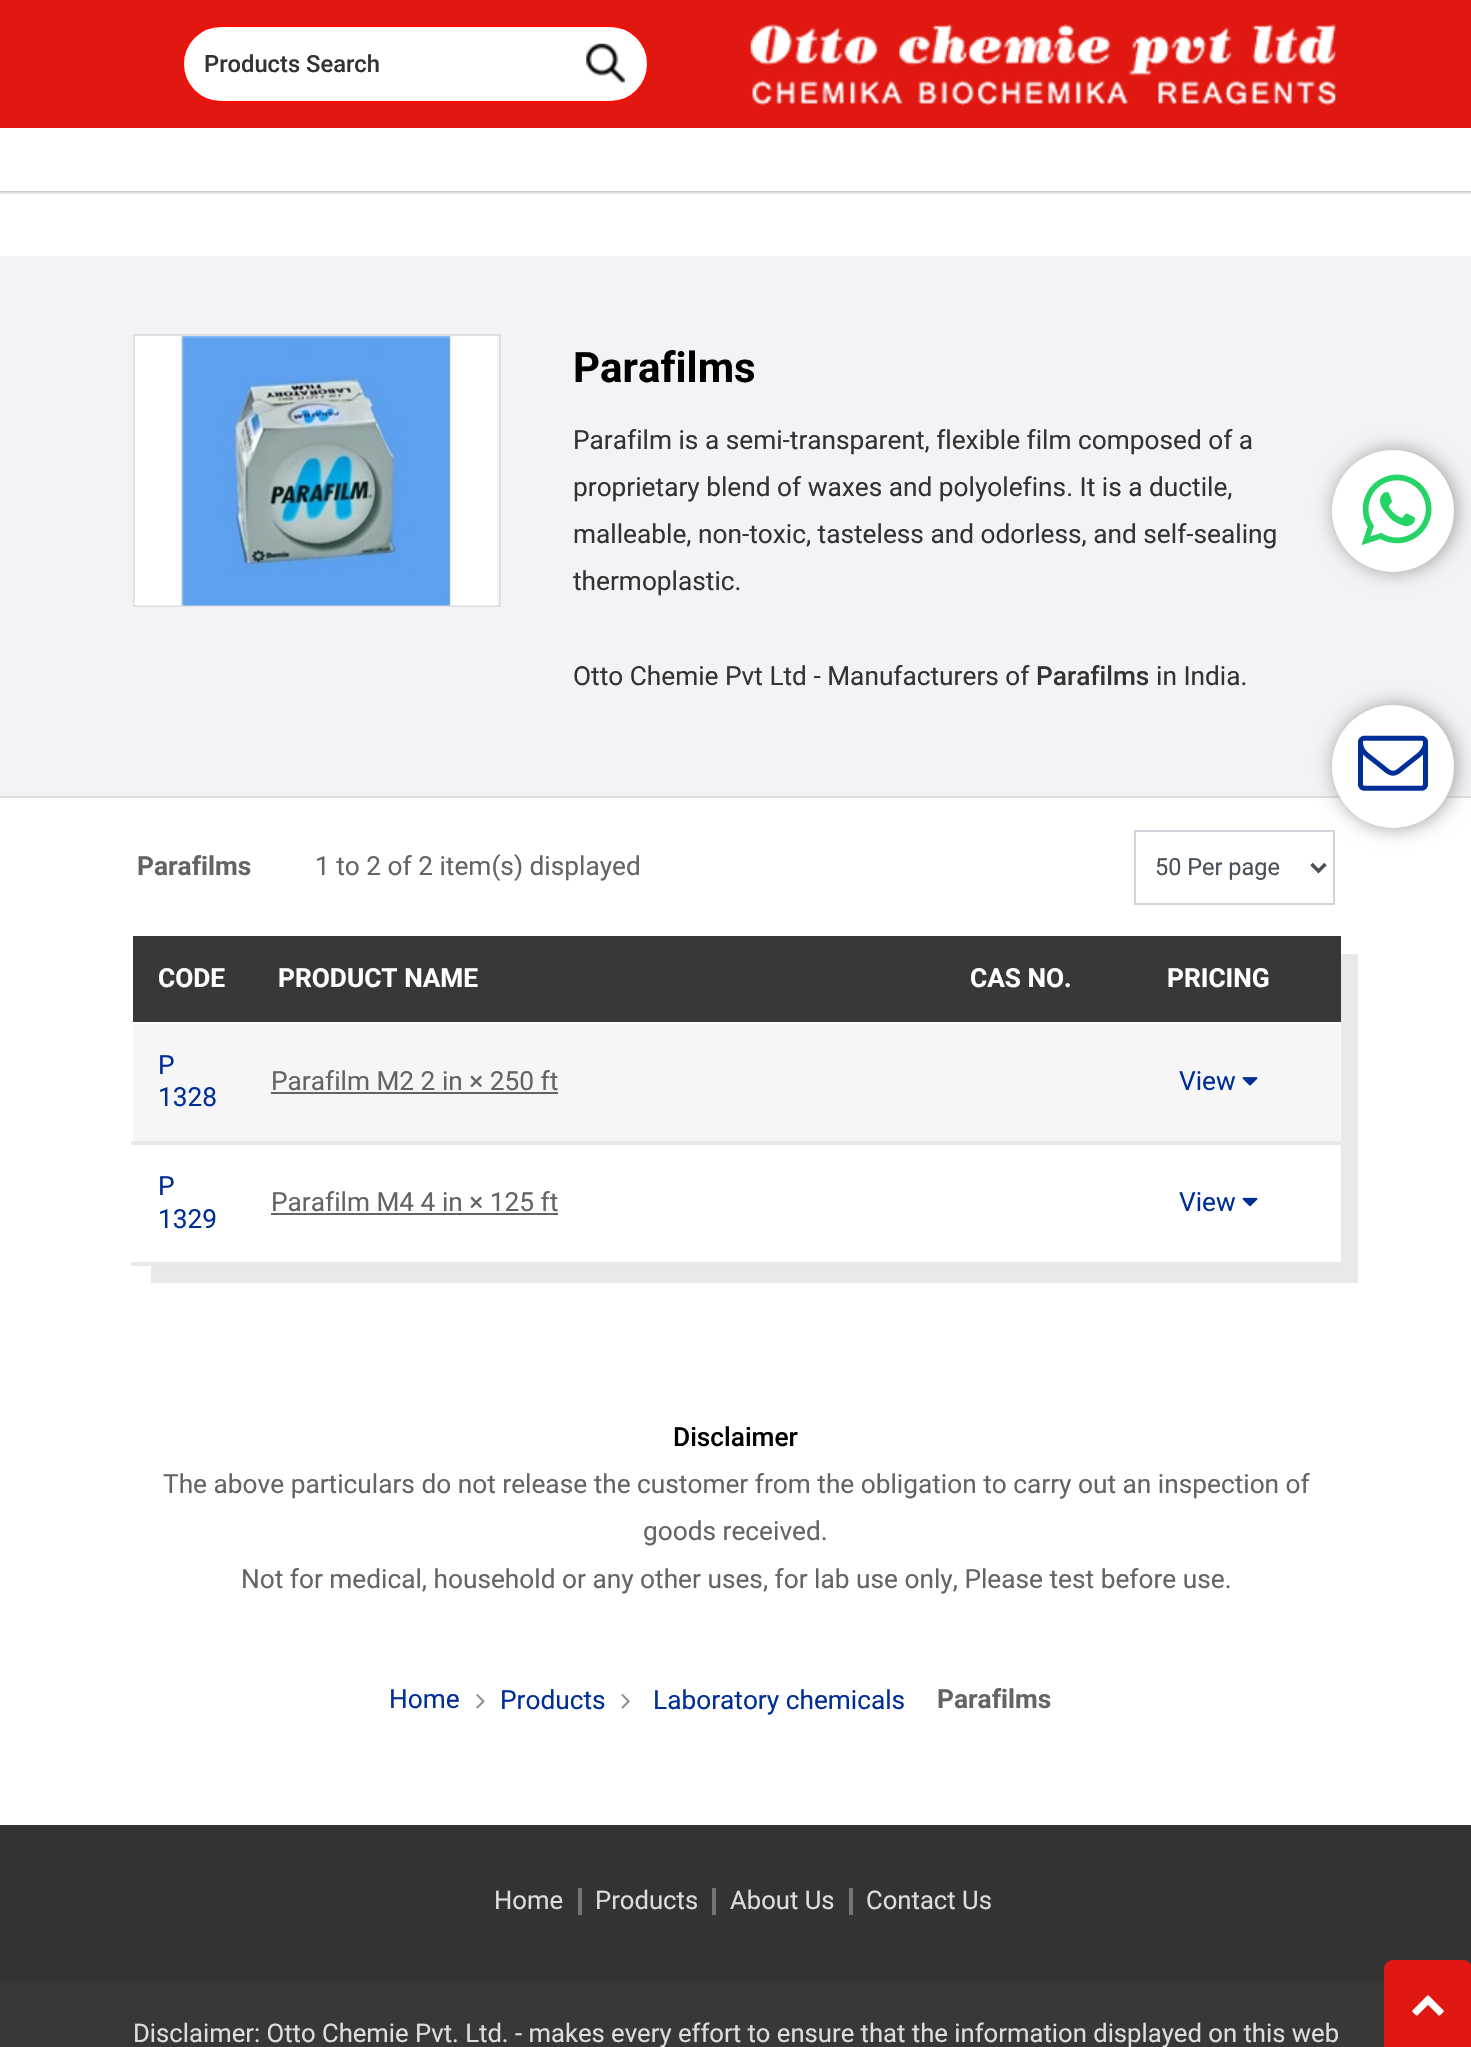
#include "include/core/SkBlurTypes.h"
#include "include/core/SkCanvas.h"
#include "include/core/SkData.h"
#include "include/core/SkFont.h"
#include "include/core/SkFontMgr.h"
#include "include/core/SkImage.h"
#include "include/core/SkMaskFilter.h"
#include "include/core/SkPaint.h"
#include "include/core/SkPathBuilder.h"
#include "include/core/SkTextBlob.h"
#include "include/effects/SkDashPathEffect.h"
#include "include/effects/SkGradientShader.h"
#include "include/utils/SkParsePath.h"

extern sk_sp<SkFontMgr> fontMgr;

static SkFont font(const char* family, int weight, float size, bool italic = false) {
    SkFontStyle style(weight, SkFontStyle::kNormal_Width,
        italic ? SkFontStyle::kItalic_Slant : SkFontStyle::kUpright_Slant);
    SkFont result(fontMgr->matchFamilyStyle(family, style), size);
    result.setSubpixel(true);
    return result;
}

static void drawLabel(SkCanvas* canvas, const char* s, float x, float y, const SkFont& font, SkColor color) {
    SkPaint ink(SkColor4f::FromColor(color));
    ink.setAntiAlias(true);
    canvas->drawString(s, x, y, font, ink);
}

static void fillRect(SkCanvas* canvas, float x, float y, float w, float h, SkColor color) {
    SkPaint ink(SkColor4f::FromColor(color));
    ink.setAntiAlias(true);
    canvas->drawRect(SkRect::MakeXYWH(x, y, w, h), ink);
}

static void fillRRect(SkCanvas* canvas, float x, float y, float w, float h, float radius, SkColor color) {
    SkPaint ink(SkColor4f::FromColor(color));
    ink.setAntiAlias(true);
    canvas->drawRoundRect(SkRect::MakeXYWH(x, y, w, h), radius, radius, ink);
}

static void drawPhoto(SkCanvas* canvas, const char* path, float x, float y, float w, float h) {
    auto image = SkImages::DeferredFromEncodedData(SkData::MakeFromFileName(path));
    canvas->drawImageRect(image, SkRect::MakeXYWH(x, y, w, h), SkSamplingOptions());
}

static SkPath parsePath(const char* data, bool evenOdd = false) {
    SkPath result = *SkParsePath::FromSVGString(data);
    if (evenOdd) result.setFillType(SkPathFillType::kEvenOdd);
    return result;
}

void draw(SkCanvas* canvas) {
    SkPaint paint;
    paint.setAntiAlias(true);
    canvas->clear(0xFFFFFFFF);
    paint.setColor(0x33000000);
    paint.setMaskFilter(SkMaskFilter::MakeBlur(kNormal_SkBlurStyle, 1));
    canvas->drawRect(SkRect::MakeXYWH(-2, -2, 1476, 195), paint);
    paint.setMaskFilter(nullptr);
    fillRect(canvas, 0, 128, 1471, 63, 0xFFFFFFFF);
    fillRect(canvas, 0, 0, 1471, 128, 0xFFE01811);
    paint.setColor(0xFFFFFFFF);
    canvas->drawRoundRect(SkRect::MakeXYWH(183, 26, 465, 76), 38, 38, paint);
    paint.setStroke(true);
    paint.setStrokeWidth(2);
    paint.setColor(0xFFFF0900);
    canvas->drawRoundRect(SkRect::MakeXYWH(183, 26, 465, 76), 38, 38, paint);
    SkFont font1 = font("Roboto", 500, 23.75f);
    drawLabel(canvas, "Products Search", 204, 72, font1, 0xFF333333);
    drawPhoto(canvas, "assets/img1.png", 586, 43, 39, 40);
    drawPhoto(canvas, "assets/img2.png", 750, 24, 586, 82);
    fillRect(canvas, 0, 256, 1471, 540, 0xFFF3F3F7);
    fillRect(canvas, 0, 796, 1471, 2, 0xFFDDDDDD);
    paint.setColor(0xFFDEDEDE);
    canvas->drawRect(SkRect::MakeXYWH(134, 335, 366, 271), paint);
    drawPhoto(canvas, "assets/img3.png", 134, 336, 363, 270);
    SkFont font2 = font("Roboto", 700, 42);
    drawLabel(canvas, "Parafilms", 573, 382, font2, 0xFF000000);
    SkFont font3 = font("Roboto", 400, 26.25f);
    drawLabel(canvas, "Parafilm is a semi-transparent, flexible film composed of a", 573, 449, font3, 0xFF333333);
    drawLabel(canvas, "proprietary blend of waxes and polyolefins. It is a ductile,", 573, 496, font3, 0xFF333333);
    drawLabel(canvas, "malleable, non-toxic, tasteless and odorless, and self-sealing", 573, 543, font3, 0xFF333333);
    drawLabel(canvas, "thermoplastic.", 573, 590, font3, 0xFF333333);
    drawLabel(canvas, "Otto Chemie Pvt Ltd - Manufacturers of", 573, 685, font3, 0xFF333333);
    SkFont font4 = font("Roboto", 500, 26.25f);
    drawLabel(canvas, "Parafilms", 1036, 685, font4, 0xFF333333);
    drawLabel(canvas, "in India.", 1156, 685, font3, 0xFF333333);
    SkFont font5 = font("Roboto", 700, 26.25f);
    drawLabel(canvas, "Parafilms", 137, 875, font5, 0xFF646464);
    drawLabel(canvas, "1 to 2 of 2 item(s) displayed", 315, 875, font3, 0xFF646464);
    paint.setColor(0xFFCED4DA);
    canvas->drawRect(SkRect::MakeXYWH(1135, 831, 199, 73), paint);
    paint.setStrokeWidth(3.5f);
    paint.setColor(0xFF495057);
    canvas->drawPath(parsePath("M1311.5 864L1318.5 871L1325.5 864"), paint);
    SkFont font6 = font("Roboto", 400, 23.5f);
    drawLabel(canvas, "50 Per page", 1155, 875, font6, 0xFF495057);
    paint.setStroke(false);
    paint.setColor(0xFFE9E9E9);
    canvas->drawPath(parsePath("M151 1265V1283H1358V954H1340V1265Z"), paint);
    fillRect(canvas, 133, 936, 1208, 86, 0xFF383838);
    drawLabel(canvas, "CODE", 158, 987, font5, 0xFFFFFFFF);
    drawLabel(canvas, "PRODUCT NAME", 278, 987, font5, 0xFFFFFFFF);
    drawLabel(canvas, "CAS NO.", 970, 987, font5, 0xFFFFFFFF);
    drawLabel(canvas, "PRICING", 1167, 987, font5, 0xFFFFFFFF);
    fillRect(canvas, 133, 1024, 1208, 117, 0xFFF6F6F6);
    fillRect(canvas, 1340, 1022, 1, 2, 0xFFFFFFFF);
    fillRect(canvas, 131, 1141, 1211, 4, 0xFFE8E8E8);
    drawLabel(canvas, "P", 158, 1074, font3, 0xFF002E97);
    drawLabel(canvas, "1328", 158, 1106, font3, 0xFF002E97);
    drawLabel(canvas, "Parafilm M2 2 in × 250 ft", 271, 1090, font3, 0xFF646464);
    fillRect(canvas, 271, 1092, 287, 2, 0xFF646464);
    drawLabel(canvas, "View", 1179, 1090, font3, 0xFF002E97);
    drawPhoto(canvas, "assets/img4.png", 1242, 1077, 16, 9);
    fillRect(canvas, 1340, 1145, 1, 117, 0xFFFFFFFF);
    fillRect(canvas, 131, 1262, 1211, 4, 0xFFE8E8E8);
    drawLabel(canvas, "P", 158, 1195, font3, 0xFF002E97);
    drawLabel(canvas, "1329", 158, 1228, font3, 0xFF002E97);
    drawLabel(canvas, "Parafilm M4 4 in × 125 ft", 271, 1211, font3, 0xFF646464);
    fillRect(canvas, 271, 1213, 287, 2, 0xFF646464);
    drawLabel(canvas, "View", 1179, 1211, font3, 0xFF002E97);
    drawPhoto(canvas, "assets/img5.png", 1242, 1197, 16, 10);
    drawLabel(canvas, "Disclaimer", 673, 1446, font4, 0xFF000000);
    drawLabel(canvas, "The above particulars do not release the customer from the obligation to carry out an inspection of", 163, 1493, font3, 0xFF646464);
    drawLabel(canvas, "goods received.", 643, 1540, font3, 0xFF646464);
    drawLabel(canvas, "Not for medical, household or any other uses, for lab use only, Please test before use.", 241, 1588, font3, 0xFF646464);
    drawLabel(canvas, "Home", 389, 1708, font3, 0xFF002E97);
    drawPhoto(canvas, "assets/img6.png", 476, 1694, 9, 15);
    drawLabel(canvas, "Products", 500, 1709, font3, 0xFF002E97);
    drawPhoto(canvas, "assets/img7.png", 621, 1694, 9, 15);
    drawLabel(canvas, "Laboratory chemicals", 653, 1709, font3, 0xFF002E97);
    drawLabel(canvas, "Parafilms", 937, 1708, font5, 0xFF646464);
    paint.setColor(0xFF9C9C9C);
    paint.setMaskFilter(SkMaskFilter::MakeBlur(kNormal_SkBlurStyle, 9.5f));
    canvas->drawRoundRect(SkRect::MakeXYWH(1334, 705, 122, 123), 61, 61, paint);
    paint.setMaskFilter(nullptr);
    fillRRect(canvas, 1332, 705, 122, 123, 61, 0xFFFFFFFF);
    drawPhoto(canvas, "assets/img8.png", 1358, 735, 70, 56);
    fillRect(canvas, 0, 1983, 1384, 64, 0xFF383838);
    paint.setMaskFilter(SkMaskFilter::MakeBlur(kNormal_SkBlurStyle, 9.5f));
    canvas->drawRoundRect(SkRect::MakeXYWH(1334, 450, 122, 122), 61, 61, paint);
    paint.setMaskFilter(nullptr);
    paint.setColor(0xFFFFFFFF);
    canvas->drawCircle(1393, 511, 61, paint);
    drawPhoto(canvas, "assets/img9.png", 1361, 474, 71, 71);
    fillRect(canvas, 0, 1825, 1471, 158, 0xFF333333);
    fillRect(canvas, 578, 1888, 4, 27, 0xFF747474);
    SkFont font7 = font("Roboto", 400, 25.65f);
    drawLabel(canvas, "Home", 494, 1909, font7, 0xFFDDDDDD);
    fillRect(canvas, 712, 1888, 4, 27, 0xFF747474);
    drawLabel(canvas, "Products", 595, 1909, font7, 0xFFDDDDDD);
    fillRect(canvas, 849, 1888, 4, 27, 0xFF747474);
    drawLabel(canvas, "About Us", 730, 1909, font7, 0xFFDDDDDD);
    drawLabel(canvas, "Contact Us", 866, 1909, font7, 0xFFDDDDDD);
    drawLabel(canvas, "Disclaimer: Otto Chemie Pvt. Ltd. - makes every effort to ensure that the information displayed on this web", 133, 2042, font7, 0xFFDDDDDD);
    paint.setColor(0xFFE01811);
    canvas->drawPath(parsePath("M1393 1960H1463C1468 1960 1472 1964 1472 1969V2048H1384V1969C1384 1964 1388 1960 1393 1960Z"), paint);
    drawPhoto(canvas, "assets/img10.png", 1412, 1995, 32, 21);
}
